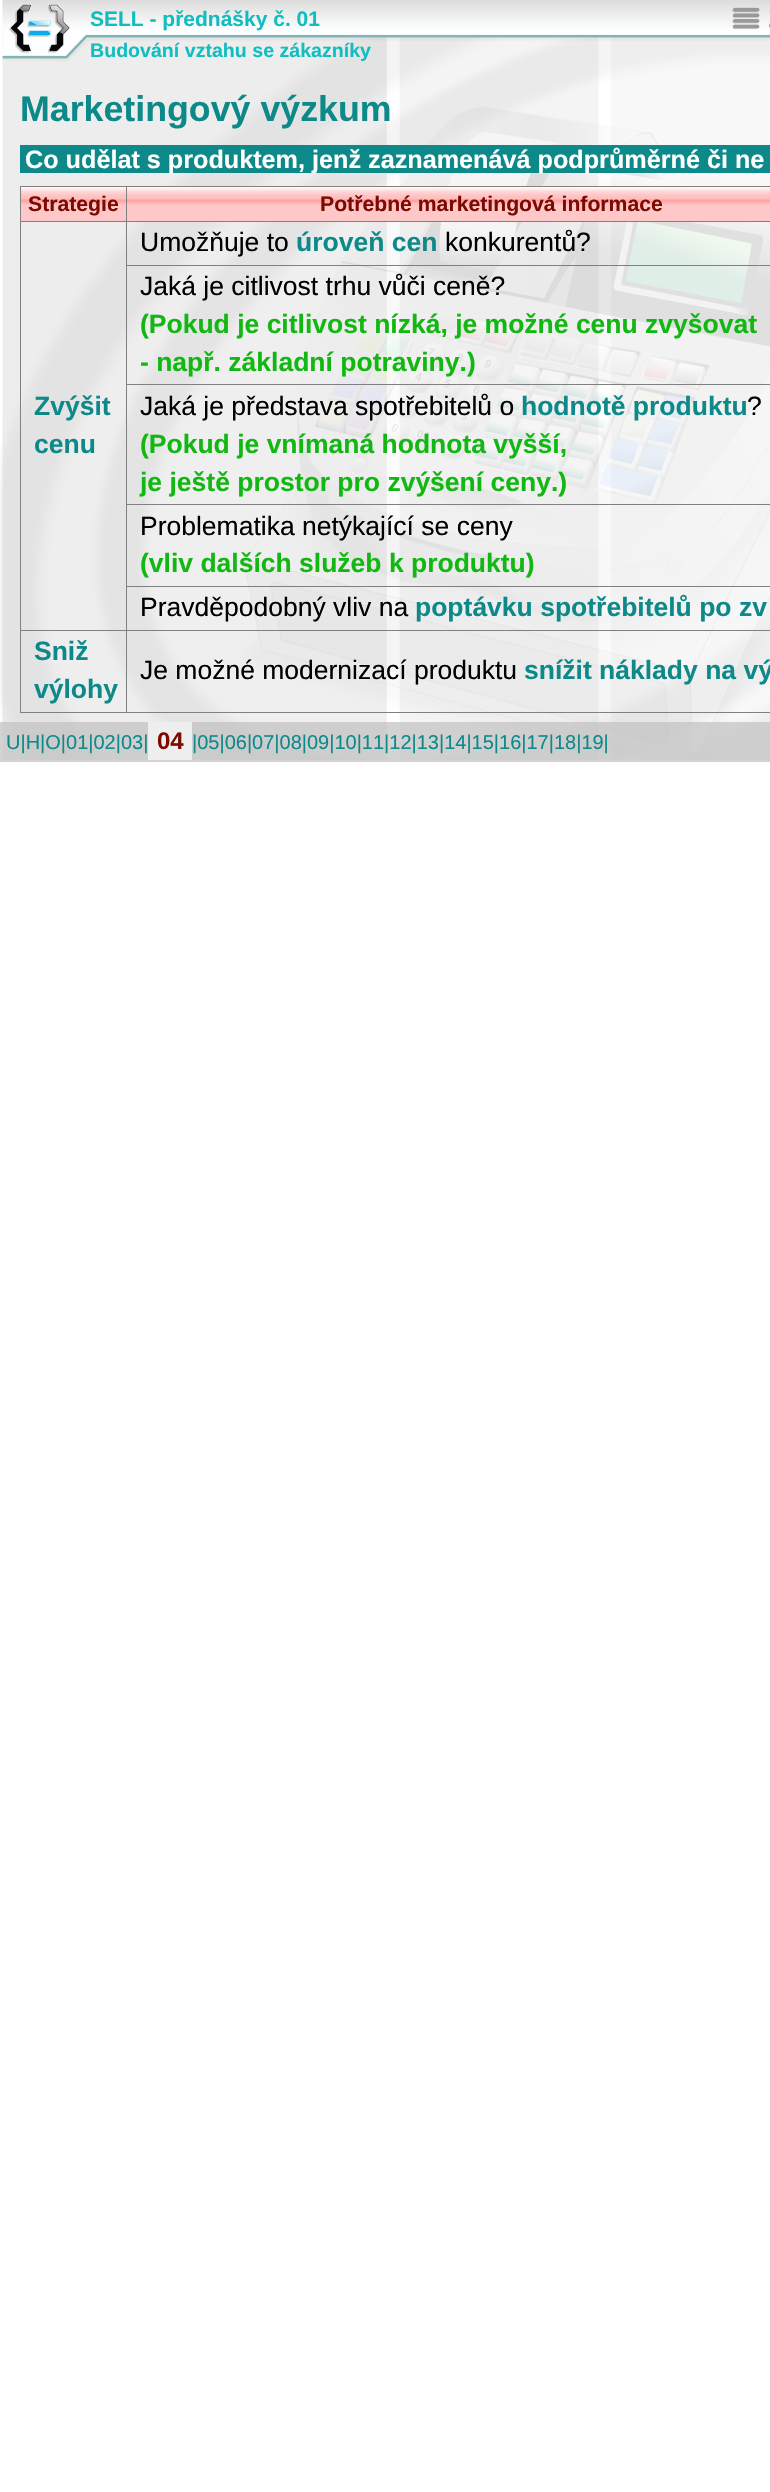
#include "include/core/SkBlurTypes.h"
#include "include/core/SkCanvas.h"
#include "include/core/SkData.h"
#include "include/core/SkFont.h"
#include "include/core/SkFontMgr.h"
#include "include/core/SkImage.h"
#include "include/core/SkMaskFilter.h"
#include "include/core/SkPaint.h"
#include "include/core/SkPathBuilder.h"
#include "include/core/SkTextBlob.h"
#include "include/effects/SkDashPathEffect.h"
#include "include/effects/SkGradientShader.h"
#include "include/utils/SkParsePath.h"

extern sk_sp<SkFontMgr> fontMgr;

static SkFont font(const char* family, int weight, float size, bool italic = false) {
    SkFontStyle style(weight, SkFontStyle::kNormal_Width,
        italic ? SkFontStyle::kItalic_Slant : SkFontStyle::kUpright_Slant);
    SkFont result(fontMgr->matchFamilyStyle(family, style), size);
    result.setSubpixel(true);
    return result;
}

static void drawLabel(SkCanvas* canvas, const char* s, float x, float y, const SkFont& font, SkColor color) {
    SkPaint ink(SkColor4f::FromColor(color));
    ink.setAntiAlias(true);
    canvas->drawString(s, x, y, font, ink);
}

static void fillRect(SkCanvas* canvas, float x, float y, float w, float h, SkColor color) {
    SkPaint ink(SkColor4f::FromColor(color));
    ink.setAntiAlias(true);
    canvas->drawRect(SkRect::MakeXYWH(x, y, w, h), ink);
}

static void drawPhoto(SkCanvas* canvas, const char* path, float x, float y, float w, float h) {
    auto image = SkImages::DeferredFromEncodedData(SkData::MakeFromFileName(path));
    canvas->drawImageRect(image, SkRect::MakeXYWH(x, y, w, h), SkSamplingOptions());
}

void draw(SkCanvas* canvas) {
    SkPaint paint;
    paint.setAntiAlias(true);
    canvas->clear(0xFFFFFFFF);
    drawPhoto(canvas, "assets/img1.png", 0, 0, 770, 760);
    SkFont font1 = font("Liberation Sans", 700, 21);
    drawLabel(canvas, "SELL - přednášky č. 01", 90, 26, font1, 0xFF10BEC0);
    SkFont font2 = font("Liberation Sans", 700, 19.6f);
    drawLabel(canvas, "Budování vztahu se zákazníky", 90, 57, font2, 0xFF10BEC0);
    drawPhoto(canvas, "assets/img2.png", 732, 7, 28, 23);
    drawPhoto(canvas, "assets/img3.png", 769, 11, 1, 17);
    SkFont font3 = font("Liberation Sans", 700, 35.75f);
    drawLabel(canvas, "Marketingový výzkum", 20, 121, font3, 0xFF0E898A);
    fillRect(canvas, 20, 145, 750, 28, 0xFF0E898A);
    SkFont font4 = font("Liberation Sans", 700, 25.2f);
    drawLabel(canvas, "Co udělat s produktem, jenž zaznamenává podprůměrné či ne", 25, 168, font4, 0xFFFFFFFF);
    drawPhoto(canvas, "assets/img4.png", 21, 187, 105, 34);
    fillRect(canvas, 126, 186, 644, 1, 0xFF808080);
    fillRect(canvas, 126, 221, 644, 1, 0xFF808080);
    fillRect(canvas, 126, 265, 644, 1, 0xFF808080);
    fillRect(canvas, 126, 384, 644, 1, 0xFF808080);
    fillRect(canvas, 126, 504, 644, 1, 0xFF808080);
    fillRect(canvas, 126, 586, 644, 1, 0xFF808080);
    fillRect(canvas, 126, 630, 644, 1, 0xFF808080);
    fillRect(canvas, 126, 712, 644, 1, 0xFF808080);
    fillRect(canvas, 126, 630, 1, 83, 0xFF808080);
    fillRect(canvas, 20, 630, 107, 1, 0xFF808080);
    fillRect(canvas, 126, 586, 1, 45, 0xFF808080);
    fillRect(canvas, 126, 504, 1, 83, 0xFF808080);
    fillRect(canvas, 126, 384, 1, 121, 0xFF808080);
    fillRect(canvas, 126, 265, 1, 120, 0xFF808080);
    fillRect(canvas, 126, 221, 1, 45, 0xFF808080);
    fillRect(canvas, 20, 221, 107, 1, 0xFF808080);
    fillRect(canvas, 126, 186, 1, 36, 0xFF808080);
    fillRect(canvas, 20, 186, 107, 1, 0xFF808080);
    fillRect(canvas, 20, 712, 107, 1, 0xFF808080);
    fillRect(canvas, 20, 630, 1, 83, 0xFF808080);
    fillRect(canvas, 20, 221, 1, 410, 0xFF808080);
    fillRect(canvas, 20, 186, 1, 36, 0xFF808080);
    SkFont font5 = font("Liberation Sans", 700, 21.2f);
    drawLabel(canvas, "Strategie", 28, 211, font5, 0xFF7D0900);
    drawPhoto(canvas, "assets/img5.png", 127, 187, 643, 34);
    drawLabel(canvas, "Potřebné marketingová informace", 320, 211, font5, 0xFF7D0900);
    SkFont font6 = font("Liberation Sans", 400, 26.5f);
    drawLabel(canvas, "Umožňuje to", 140, 251, font6, 0xFF000000);
    SkFont font7 = font("Liberation Sans", 700, 26.5f);
    drawLabel(canvas, "úroveň cen", 296, 251, font7, 0xFF0E898A);
    drawLabel(canvas, "konkurentů?", 445, 251, font6, 0xFF000000);
    drawLabel(canvas, "Zvýšit", 34, 415, font7, 0xFF0E898A);
    drawLabel(canvas, "cenu", 34, 453, font7, 0xFF0E898A);
    drawLabel(canvas, "Jaká je citlivost trhu vůči ceně?", 140, 295, font6, 0xFF000000);
    drawLabel(canvas, "(Pokud je citlivost nízká, je možné cenu zvyšovat", 140, 333, font7, 0xFF12B812);
    drawLabel(canvas, "- např. základní potraviny.)", 140, 371, font7, 0xFF12B812);
    drawLabel(canvas, "Jaká je představa spotřebitelů o", 140, 415, font6, 0xFF000000);
    drawLabel(canvas, "hodnotě produktu", 521, 415, font7, 0xFF0E898A);
    drawLabel(canvas, "?", 747, 415, font6, 0xFF000000);
    drawLabel(canvas, "(Pokud je vnímaná hodnota vyšší,", 140, 453, font7, 0xFF12B812);
    drawLabel(canvas, "je ještě prostor pro zvýšení ceny.)", 140, 491, font7, 0xFF12B812);
    drawLabel(canvas, "Problematika netýkající se ceny", 140, 535, font6, 0xFF000000);
    drawLabel(canvas, "(vliv dalších služeb k produktu)", 140, 572, font7, 0xFF12B812);
    drawLabel(canvas, "Pravděpodobný vliv na", 140, 616, font6, 0xFF000000);
    drawLabel(canvas, "poptávku spotřebitelů po zv", 415, 616, font7, 0xFF0E898A);
    drawLabel(canvas, "Sniž", 34, 660, font7, 0xFF0E898A);
    drawLabel(canvas, "výlohy", 34, 698, font7, 0xFF0E898A);
    drawLabel(canvas, "Je možné modernizací produktu", 140, 679, font6, 0xFF000000);
    drawLabel(canvas, "snížit náklady na vý", 524, 679, font7, 0xFF0E898A);
    fillRect(canvas, 0, 722, 770, 40, 0xB3C0C0C0);
    SkFont font8 = font("Liberation Sans", 400, 20);
    drawLabel(canvas, "U|H|O|01|02|03|", 6, 749, font8, 0xFF0E898A);
    fillRect(canvas, 148, 722, 44, 38, 0xFFEEEEEE);
    SkFont font9 = font("Liberation Sans", 700, 24);
    drawLabel(canvas, "04", 157, 749, font9, 0xFF7D0900);
    drawLabel(canvas, "|05|06|07|08|09|10|11|12|13|14|15|16|17|18|19|", 192, 749, font8, 0xFF0E898A);
}
